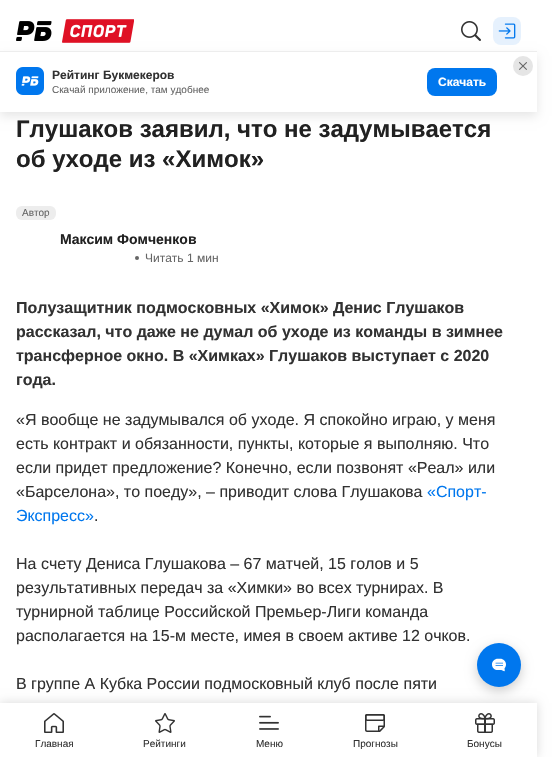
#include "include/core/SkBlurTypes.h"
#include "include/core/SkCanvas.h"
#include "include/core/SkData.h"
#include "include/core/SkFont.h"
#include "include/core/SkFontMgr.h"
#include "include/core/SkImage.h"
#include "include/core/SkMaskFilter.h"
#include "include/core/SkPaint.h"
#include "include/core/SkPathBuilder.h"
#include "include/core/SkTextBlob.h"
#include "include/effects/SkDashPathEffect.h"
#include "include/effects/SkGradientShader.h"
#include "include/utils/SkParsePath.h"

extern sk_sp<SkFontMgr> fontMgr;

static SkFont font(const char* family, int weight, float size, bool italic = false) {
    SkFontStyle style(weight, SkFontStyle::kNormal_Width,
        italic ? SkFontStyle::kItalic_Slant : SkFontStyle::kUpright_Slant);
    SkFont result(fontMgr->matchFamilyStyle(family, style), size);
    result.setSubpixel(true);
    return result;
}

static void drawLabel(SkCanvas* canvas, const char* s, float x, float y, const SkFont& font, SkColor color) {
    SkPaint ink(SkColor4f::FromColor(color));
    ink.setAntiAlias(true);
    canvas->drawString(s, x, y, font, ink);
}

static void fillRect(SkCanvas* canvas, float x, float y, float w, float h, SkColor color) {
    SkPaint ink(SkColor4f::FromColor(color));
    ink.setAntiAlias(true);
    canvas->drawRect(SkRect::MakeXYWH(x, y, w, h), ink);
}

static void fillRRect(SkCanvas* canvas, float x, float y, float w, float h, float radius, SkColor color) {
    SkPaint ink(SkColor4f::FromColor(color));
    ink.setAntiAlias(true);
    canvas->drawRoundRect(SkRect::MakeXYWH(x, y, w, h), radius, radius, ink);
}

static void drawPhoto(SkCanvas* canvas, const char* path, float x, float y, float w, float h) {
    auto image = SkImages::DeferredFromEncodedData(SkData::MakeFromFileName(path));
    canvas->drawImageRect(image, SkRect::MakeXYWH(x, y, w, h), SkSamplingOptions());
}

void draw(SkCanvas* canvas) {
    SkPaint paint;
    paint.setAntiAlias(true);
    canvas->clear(0xFFFFFFFF);
    paint.setColor(0x1A000000);
    paint.setMaskFilter(SkMaskFilter::MakeBlur(kNormal_SkBlurStyle, 5));
    canvas->drawRect(SkRect::MakeXYWH(0, 56, 537, 60), paint);
    paint.setMaskFilter(nullptr);
    fillRect(canvas, 0, 51, 537, 1, 0xFFEDEDED);
    drawPhoto(canvas, "assets/img1.png", 16, 21, 36, 20);
    drawPhoto(canvas, "assets/img2.png", 62, 19, 72, 24);
    drawPhoto(canvas, "assets/img3.png", 461, 21, 20, 20);
    fillRRect(canvas, 493, 17, 28, 28, 8, 0xFFE6F1FD);
    drawPhoto(canvas, "assets/img4.png", 498, 23, 18, 16);
    fillRect(canvas, 0, 52, 537, 60, 0xFFFFFFFF);
    paint.setColor(0xFFE5E5E5);
    canvas->drawCircle(523, 66, 10, paint);
    drawPhoto(canvas, "assets/img5.png", 519, 62, 8, 8);
    drawPhoto(canvas, "assets/img6.png", 16, 67, 28, 28);
    SkFont font1 = font("Liberation Sans", 700, 12);
    drawLabel(canvas, "Рейтинг Букмекеров", 52, 79, font1, 0xFF323232);
    SkFont font2 = font("Liberation Sans", 400, 10);
    drawLabel(canvas, "Скачай приложение, там удобнее", 52, 93, font2, 0xFF666666);
    fillRRect(canvas, 427, 68, 70, 28, 8, 0xFF0077EE);
    drawLabel(canvas, "Скачать", 438, 86, font1, 0xFFFFFFFF);
    SkFont font3 = font("Liberation Sans", 700, 24);
    drawLabel(canvas, "Глушаков заявил, что не задумывается", 16, 137, font3, 0xFF212121);
    drawLabel(canvas, "об уходе из «Химок»", 16, 167, font3, 0xFF212121);
    fillRRect(canvas, 16, 206, 40, 14, 6, 0xFFEDEDED);
    drawLabel(canvas, "Автор", 22, 216, font2, 0xFF666666);
    SkFont font4 = font("Liberation Sans", 700, 14);
    drawLabel(canvas, "Максим Фомченков", 60, 244, font4, 0xFF212121);
    paint.setColor(0xFF666666);
    canvas->drawCircle(137, 258, 2, paint);
    SkFont font5 = font("Liberation Sans", 400, 12);
    drawLabel(canvas, "Читать 1 мин", 145, 262, font5, 0xFF666666);
    SkFont font6 = font("Liberation Sans", 700, 16);
    drawLabel(canvas, "Полузащитник подмосковных «Химок» Денис Глушаков", 16, 313, font6, 0xFF323232);
    drawLabel(canvas, "рассказал, что даже не думал об уходе из команды в зимнее", 16, 337, font6, 0xFF323232);
    drawLabel(canvas, "трансферное окно. В «Химках» Глушаков выступает с 2020", 16, 361, font6, 0xFF323232);
    drawLabel(canvas, "года.", 16, 385, font6, 0xFF323232);
    SkFont font7 = font("Liberation Sans", 400, 16);
    drawLabel(canvas, "«Я вообще не задумывался об уходе. Я спокойно играю, у меня", 16, 425, font7, 0xFF323232);
    drawLabel(canvas, "есть контракт и обязанности, пункты, которые я выполняю. Что", 16, 449, font7, 0xFF323232);
    drawLabel(canvas, "если придет предложение? Конечно, если позвонят «Реал» или", 16, 473, font7, 0xFF323232);
    drawLabel(canvas, "«Барселона», то поеду», – приводит слова Глушакова", 16, 497, font7, 0xFF323232);
    drawLabel(canvas, "«Спорт-", 427, 497, font7, 0xFF0077EE);
    drawLabel(canvas, "Экспресс»", 16, 521, font7, 0xFF0077EE);
    drawLabel(canvas, ".", 94, 521, font7, 0xFF323232);
    drawLabel(canvas, "На счету Дениса Глушакова – 67 матчей, 15 голов и 5", 16, 569, font7, 0xFF323232);
    drawLabel(canvas, "результативных передач за «Химки» во всех турнирах. В", 16, 593, font7, 0xFF323232);
    drawLabel(canvas, "турнирной таблице Российской Премьер-Лиги команда", 16, 617, font7, 0xFF323232);
    drawLabel(canvas, "располагается на 15-м месте, имея в своем активе 12 очков.", 16, 641, font7, 0xFF323232);
    drawLabel(canvas, "В группе A Кубка России подмосковный клуб после пяти", 16, 689, font7, 0xFF323232);
    paint.setColor(0x33000000);
    paint.setMaskFilter(SkMaskFilter::MakeBlur(kNormal_SkBlurStyle, 6));
    canvas->drawRoundRect(SkRect::MakeXYWH(477, 647, 44, 44), 22, 22, paint);
    paint.setMaskFilter(nullptr);
    paint.setColor(0xFF0077EE);
    canvas->drawCircle(499, 665, 22, paint);
    drawPhoto(canvas, "assets/img7.png", 492, 658, 14, 14);
    paint.setColor(0x26000000);
    paint.setMaskFilter(SkMaskFilter::MakeBlur(kNormal_SkBlurStyle, 5));
    canvas->drawRect(SkRect::MakeXYWH(0, 703, 537, 54), paint);
    paint.setMaskFilter(nullptr);
    fillRect(canvas, 0, 703, 537, 54, 0xFFFFFFFF);
    drawPhoto(canvas, "assets/img8.png", 44, 713, 20, 20);
    drawLabel(canvas, "Главная", 35, 747, font2, 0xFF323232);
    drawPhoto(canvas, "assets/img9.png", 155, 713, 20, 20);
    drawLabel(canvas, "Рейтинги", 143, 747, font2, 0xFF323232);
    drawPhoto(canvas, "assets/img10.png", 259, 715, 20, 15);
    drawLabel(canvas, "Меню", 256, 747, font2, 0xFF323232);
    drawPhoto(canvas, "assets/img11.png", 365, 714, 20, 18);
    drawLabel(canvas, "Прогнозы", 353, 747, font2, 0xFF323232);
    drawPhoto(canvas, "assets/img12.png", 475, 713, 20, 20);
    drawLabel(canvas, "Бонусы", 467, 747, font2, 0xFF323232);
}
